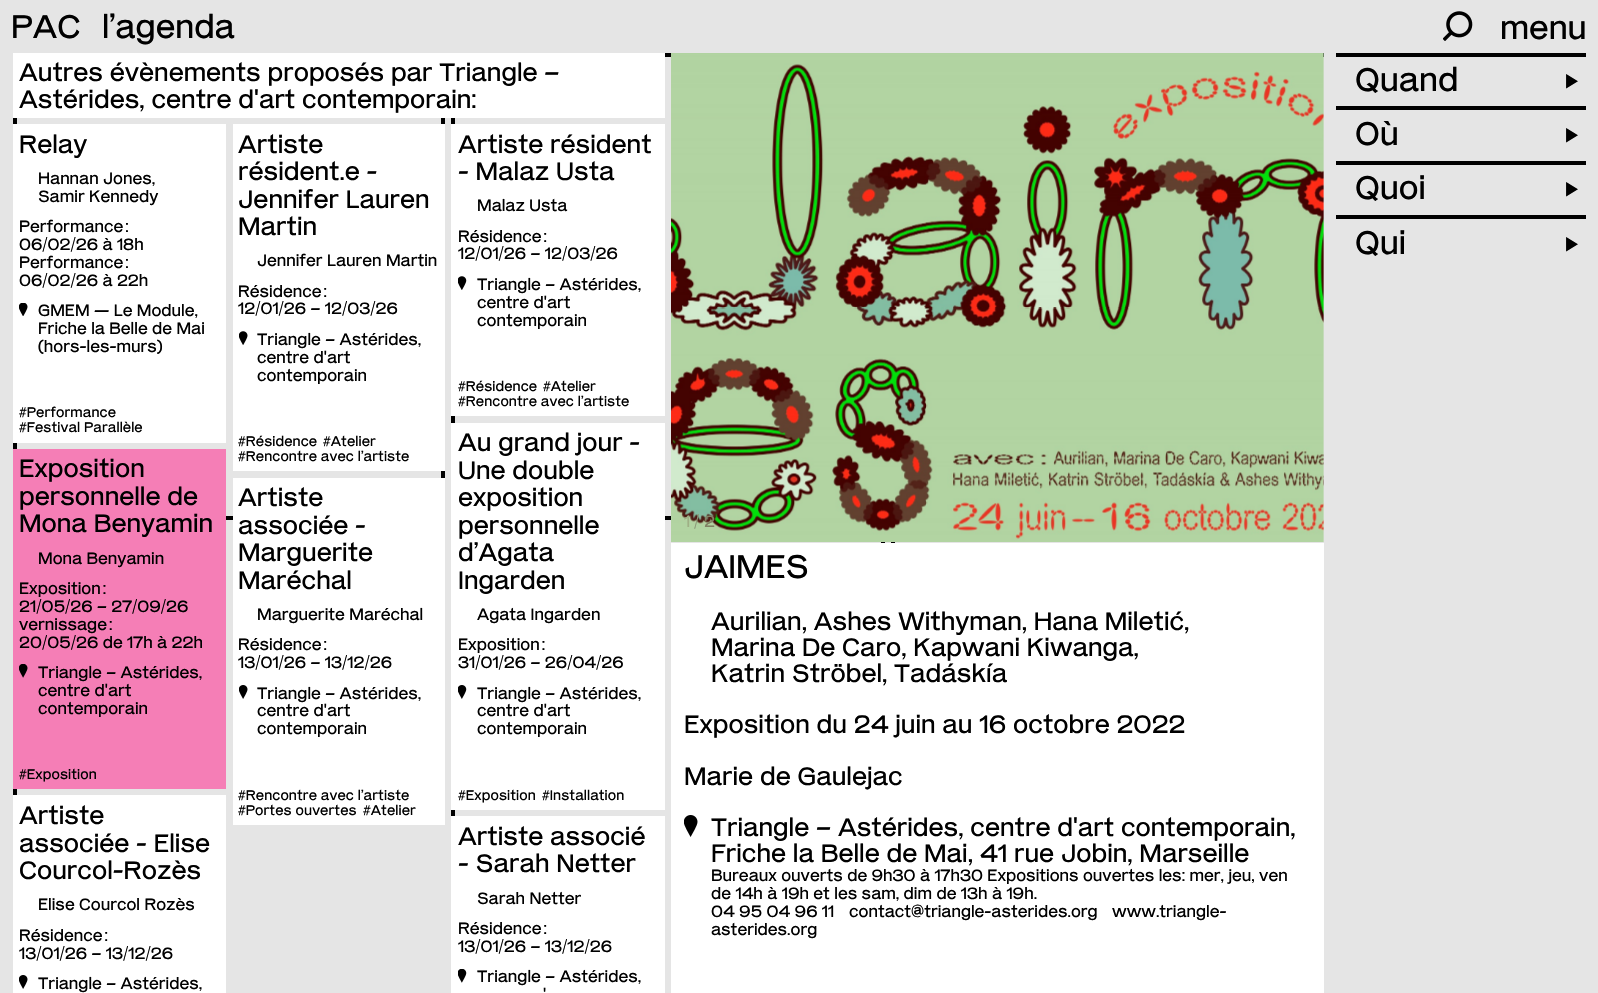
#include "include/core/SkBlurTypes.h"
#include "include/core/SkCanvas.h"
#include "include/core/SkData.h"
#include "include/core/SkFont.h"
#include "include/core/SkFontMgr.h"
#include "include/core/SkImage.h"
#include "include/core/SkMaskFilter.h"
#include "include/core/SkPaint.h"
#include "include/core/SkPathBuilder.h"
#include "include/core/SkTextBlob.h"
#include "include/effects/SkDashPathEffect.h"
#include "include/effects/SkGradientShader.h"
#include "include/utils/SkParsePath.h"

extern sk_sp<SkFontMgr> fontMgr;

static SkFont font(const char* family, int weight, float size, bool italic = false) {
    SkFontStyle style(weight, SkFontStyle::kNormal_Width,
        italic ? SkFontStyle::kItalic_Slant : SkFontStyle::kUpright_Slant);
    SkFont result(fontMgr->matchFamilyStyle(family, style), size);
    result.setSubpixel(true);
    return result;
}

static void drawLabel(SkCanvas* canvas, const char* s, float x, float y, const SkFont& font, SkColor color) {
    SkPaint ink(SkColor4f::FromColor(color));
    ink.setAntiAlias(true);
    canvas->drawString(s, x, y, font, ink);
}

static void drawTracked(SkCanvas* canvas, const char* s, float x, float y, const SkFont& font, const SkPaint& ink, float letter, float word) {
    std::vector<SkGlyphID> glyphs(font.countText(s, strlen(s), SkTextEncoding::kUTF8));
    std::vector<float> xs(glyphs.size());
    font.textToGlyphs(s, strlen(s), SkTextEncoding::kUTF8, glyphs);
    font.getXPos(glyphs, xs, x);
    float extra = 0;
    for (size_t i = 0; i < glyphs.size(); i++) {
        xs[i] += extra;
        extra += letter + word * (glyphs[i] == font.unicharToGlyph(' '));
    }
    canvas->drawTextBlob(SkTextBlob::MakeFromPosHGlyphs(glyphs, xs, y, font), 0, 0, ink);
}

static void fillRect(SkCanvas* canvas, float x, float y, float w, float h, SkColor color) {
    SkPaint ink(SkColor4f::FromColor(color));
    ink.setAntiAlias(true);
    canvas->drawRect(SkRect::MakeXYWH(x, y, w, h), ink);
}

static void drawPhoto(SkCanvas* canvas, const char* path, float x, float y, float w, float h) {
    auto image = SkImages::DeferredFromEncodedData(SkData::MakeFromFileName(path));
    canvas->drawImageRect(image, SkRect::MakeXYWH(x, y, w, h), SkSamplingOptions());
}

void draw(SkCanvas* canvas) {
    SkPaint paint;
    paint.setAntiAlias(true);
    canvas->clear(0xFFE5E5E5);
    SkFont font1 = font("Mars", 400, 32.5f);
    drawLabel(canvas, "PAC", 11, 38, font1, 0xFF000000);
    drawLabel(canvas, "l’agenda", 102, 38, font1, 0xFF000000);
    drawPhoto(canvas, "assets/img1.png", 1443, 11, 30, 30);
    drawLabel(canvas, "menu", 1500, 39, font1, 0xFF000000);
    fillRect(canvas, 13, 118, 4, 677, 0xFF000000);
    fillRect(canvas, 441, 118, 4, 360, 0xFF000000);
    fillRect(canvas, 226, 516, 7, 4, 0xFF000000);
    fillRect(canvas, 665, 53, 6, 4, 0xFF000000);
    fillRect(canvas, 451, 118, 4, 698, 0xFF000000);
    fillRect(canvas, 665, 516, 6, 4, 0xFF000000);
    fillRect(canvas, 881, 542, 4, 1, 0xFF000000);
    fillRect(canvas, 1323, 53, 1, 4, 0xFF000000);
    fillRect(canvas, 891, 542, 4, 1, 0xFF000000);
    fillRect(canvas, 13, 53, 652, 65, 0xFFFFFFFF);
    SkFont font2 = font("Mars", 400, 25);
    drawLabel(canvas, "Autres évènements proposés par Triangle –", 19, 81, font2, 0xFF000000);
    drawLabel(canvas, "Astérides, centre d'art contemporain :", 19, 108, font2, 0xFF000000);
    fillRect(canvas, 13, 124, 213, 319, 0xFFFFFFFF);
    drawLabel(canvas, "Relay", 19, 153, font2, 0xFF000000);
    SkFont font3 = font("Mars", 400, 16.25f);
    drawLabel(canvas, "Hannan Jones,", 38, 184, font3, 0xFF000000);
    drawLabel(canvas, "Samir Kennedy", 38, 202, font3, 0xFF000000);
    drawLabel(canvas, "Performance :", 19, 232, font3, 0xFF000000);
    drawLabel(canvas, "06/02/26 à 18h", 19, 250, font3, 0xFF000000);
    drawLabel(canvas, "Performance :", 19, 268, font3, 0xFF000000);
    drawLabel(canvas, "06/02/26 à 22h", 19, 286, font3, 0xFF000000);
    drawPhoto(canvas, "assets/img2.png", 19, 303, 9, 13);
    drawLabel(canvas, "GMEM — Le Module,", 38, 316, font3, 0xFF000000);
    drawLabel(canvas, "Friche la Belle de Mai", 38, 334, font3, 0xFF000000);
    drawLabel(canvas, "(hors-les-murs)", 38, 352, font3, 0xFF000000);
    SkFont font4 = font("Mars", 400, 13.75f);
    paint.setColor(0xFF000000);
    drawTracked(canvas, "#Performance", 19, 417, font4, paint, 0.1f, 0);
    drawTracked(canvas, "#Festival Parallèle", 19, 432, font4, paint, 0.1f, 0);
    fillRect(canvas, 233, 124, 212, 347, 0xFFFFFFFF);
    drawLabel(canvas, "Artiste", 238, 153, font2, 0xFF000000);
    drawLabel(canvas, "résident.e -", 238, 180, font2, 0xFF000000);
    drawLabel(canvas, "Jennifer Lauren", 238, 208, font2, 0xFF000000);
    drawLabel(canvas, "Martin", 238, 235, font2, 0xFF000000);
    drawLabel(canvas, "Jennifer Lauren Martin", 257, 266, font3, 0xFF000000);
    drawLabel(canvas, "Résidence :", 238, 297, font3, 0xFF000000);
    drawLabel(canvas, "12/01/26 – 12/03/26", 238, 314, font3, 0xFF000000);
    drawPhoto(canvas, "assets/img3.png", 239, 331, 9, 14);
    drawLabel(canvas, "Triangle – Astérides,", 257, 345, font3, 0xFF000000);
    drawLabel(canvas, "centre d'art", 257, 363, font3, 0xFF000000);
    drawLabel(canvas, "contemporain", 257, 381, font3, 0xFF000000);
    drawTracked(canvas, "#Résidence", 238, 446, font4, paint, 0.1f, 0);
    drawTracked(canvas, "#Atelier", 323, 446, font4, paint, 0.1f, 0);
    drawTracked(canvas, "#Rencontre avec l’artiste", 238, 461, font4, paint, 0.1f, 0);
    fillRect(canvas, 451, 124, 214, 292, 0xFFFFFFFF);
    drawLabel(canvas, "Artiste résident", 458, 153, font2, 0xFF000000);
    drawLabel(canvas, "- Malaz Usta", 458, 180, font2, 0xFF000000);
    drawLabel(canvas, "Malaz Usta", 477, 211, font3, 0xFF000000);
    drawLabel(canvas, "Résidence :", 458, 242, font3, 0xFF000000);
    drawLabel(canvas, "12/01/26 – 12/03/26", 458, 259, font3, 0xFF000000);
    drawPhoto(canvas, "assets/img4.png", 458, 276, 9, 14);
    drawLabel(canvas, "Triangle – Astérides,", 477, 290, font3, 0xFF000000);
    drawLabel(canvas, "centre d'art", 477, 308, font3, 0xFF000000);
    drawLabel(canvas, "contemporain", 477, 326, font3, 0xFF000000);
    drawTracked(canvas, "#Résidence", 458, 391, font4, paint, 0.1f, 0);
    drawTracked(canvas, "#Atelier", 543, 391, font4, paint, 0.1f, 0);
    drawTracked(canvas, "#Rencontre avec l’artiste", 458, 406, font4, paint, 0.1f, 0);
    fillRect(canvas, 13, 449, 213, 340, 0xFFF57EB6);
    drawLabel(canvas, "Exposition", 19, 477, font2, 0xFF000000);
    drawLabel(canvas, "personnelle de", 19, 505, font2, 0xFF000000);
    drawLabel(canvas, "Mona Benyamin", 19, 532, font2, 0xFF000000);
    drawLabel(canvas, "Mona Benyamin", 38, 564, font3, 0xFF000000);
    drawLabel(canvas, "Exposition :", 19, 594, font3, 0xFF000000);
    drawLabel(canvas, "21/05/26 – 27/09/26", 19, 612, font3, 0xFF000000);
    drawLabel(canvas, "vernissage :", 19, 630, font3, 0xFF000000);
    drawLabel(canvas, "20/05/26 de 17h à 22h", 19, 648, font3, 0xFF000000);
    drawPhoto(canvas, "assets/img5.png", 19, 664, 9, 14);
    drawLabel(canvas, "Triangle – Astérides,", 38, 678, font3, 0xFF000000);
    drawLabel(canvas, "centre d'art", 38, 696, font3, 0xFF000000);
    drawLabel(canvas, "contemporain", 38, 714, font3, 0xFF000000);
    drawTracked(canvas, "#Exposition", 19, 779, font4, paint, 0.1f, 0);
    fillRect(canvas, 233, 478, 212, 347, 0xFFFFFFFF);
    drawLabel(canvas, "Artiste", 238, 506, font2, 0xFF000000);
    drawLabel(canvas, "associée -", 238, 534, font2, 0xFF000000);
    drawLabel(canvas, "Marguerite", 238, 561, font2, 0xFF000000);
    drawLabel(canvas, "Maréchal", 238, 589, font2, 0xFF000000);
    drawLabel(canvas, "Marguerite Maréchal", 257, 620, font3, 0xFF000000);
    drawLabel(canvas, "Résidence :", 238, 650, font3, 0xFF000000);
    drawLabel(canvas, "13/01/26 – 13/12/26", 238, 668, font3, 0xFF000000);
    drawPhoto(canvas, "assets/img6.png", 239, 685, 9, 14);
    drawLabel(canvas, "Triangle – Astérides,", 257, 699, font3, 0xFF000000);
    drawLabel(canvas, "centre d'art", 257, 716, font3, 0xFF000000);
    drawLabel(canvas, "contemporain", 257, 734, font3, 0xFF000000);
    drawTracked(canvas, "#Rencontre avec l’artiste", 238, 800, font4, paint, 0.1f, 0);
    drawTracked(canvas, "#Portes ouvertes", 238, 815, font4, paint, 0.1f, 0);
    drawTracked(canvas, "#Atelier", 363, 815, font4, paint, 0.1f, 0);
    fillRect(canvas, 451, 423, 214, 387, 0xFFFFFFFF);
    drawLabel(canvas, "Au grand jour -", 458, 451, font2, 0xFF000000);
    drawLabel(canvas, "Une double", 458, 479, font2, 0xFF000000);
    drawLabel(canvas, "exposition", 458, 506, font2, 0xFF000000);
    drawLabel(canvas, "personnelle", 458, 534, font2, 0xFF000000);
    drawLabel(canvas, "d’Agata", 458, 561, font2, 0xFF000000);
    drawLabel(canvas, "Ingarden", 458, 589, font2, 0xFF000000);
    drawLabel(canvas, "Agata Ingarden", 477, 620, font3, 0xFF000000);
    drawLabel(canvas, "Exposition :", 458, 650, font3, 0xFF000000);
    drawLabel(canvas, "31/01/26 – 26/04/26", 458, 668, font3, 0xFF000000);
    drawPhoto(canvas, "assets/img7.png", 458, 685, 9, 14);
    drawLabel(canvas, "Triangle – Astérides,", 477, 699, font3, 0xFF000000);
    drawLabel(canvas, "centre d'art", 477, 716, font3, 0xFF000000);
    drawLabel(canvas, "contemporain", 477, 734, font3, 0xFF000000);
    drawTracked(canvas, "#Exposition", 458, 800, font4, paint, 0.1f, 0);
    drawTracked(canvas, "#Installation", 542, 800, font4, paint, 0.1f, 0);
    fillRect(canvas, 13, 795, 213, 198, 0xFFFFFFFF);
    drawLabel(canvas, "Artiste", 19, 824, font2, 0xFF000000);
    drawLabel(canvas, "associée - Elise", 19, 852, font2, 0xFF000000);
    drawLabel(canvas, "Courcol-Rozès", 19, 879, font2, 0xFF000000);
    drawLabel(canvas, "Elise Courcol Rozès", 38, 910, font3, 0xFF000000);
    drawLabel(canvas, "Résidence :", 19, 941, font3, 0xFF000000);
    drawLabel(canvas, "13/01/26 – 13/12/26", 19, 959, font3, 0xFF000000);
    drawPhoto(canvas, "assets/img6.png", 19, 975, 9, 14);
    drawLabel(canvas, "Triangle – Astérides,", 38, 989, font3, 0xFF000000);
    fillRect(canvas, 451, 816, 214, 177, 0xFFFFFFFF);
    drawLabel(canvas, "Artiste associé", 458, 845, font2, 0xFF000000);
    drawLabel(canvas, "- Sarah Netter", 458, 872, font2, 0xFF000000);
    drawLabel(canvas, "Sarah Netter", 477, 904, font3, 0xFF000000);
    drawLabel(canvas, "Résidence :", 458, 934, font3, 0xFF000000);
    drawLabel(canvas, "13/01/26 – 13/12/26", 458, 952, font3, 0xFF000000);
    drawPhoto(canvas, "assets/img8.png", 458, 969, 9, 14);
    drawLabel(canvas, "Triangle – Astérides,", 477, 982, font3, 0xFF000000);
    drawLabel(canvas, "'", 543, 1000, font3, 0xFF000000);
    fillRect(canvas, 1336, 53, 250, 4, 0xFF000000);
    drawLabel(canvas, "Quand", 1355, 91, font1, 0xFF000000);
    drawLabel(canvas, "►", 1562, 91, font1, 0xFF000000);
    fillRect(canvas, 1336, 106, 250, 4, 0xFF000000);
    drawLabel(canvas, "Où", 1355, 145, font1, 0xFF000000);
    drawLabel(canvas, "►", 1562, 145, font1, 0xFF000000);
    fillRect(canvas, 1336, 161, 250, 4, 0xFF000000);
    drawLabel(canvas, "Quoi", 1355, 199, font1, 0xFF000000);
    drawLabel(canvas, "►", 1562, 199, font1, 0xFF000000);
    fillRect(canvas, 1336, 215, 250, 4, 0xFF000000);
    drawLabel(canvas, "Qui", 1355, 254, font1, 0xFF000000);
    drawLabel(canvas, "►", 1562, 254, font1, 0xFF000000);
    drawPhoto(canvas, "assets/img9.png", 671, 53, 653, 489);
    drawLabel(canvas, "1", 684, 527, font3, 0xFF9FB086);
    drawLabel(canvas, "/", 694, 527, font3, 0xFF8C9B79);
    drawLabel(canvas, "2", 704, 527, font3, 0xFF818164);
    fillRect(canvas, 671, 543, 653, 450, 0xFFFFFFFF);
    drawLabel(canvas, "JAIMES", 684, 578, font1, 0xFF000000);
    drawLabel(canvas, "Aurilian, Ashes Withyman, Hana Miletić,", 711, 630, font2, 0xFF000000);
    drawLabel(canvas, "Marina De Caro, Kapwani Kiwanga,", 711, 656, font2, 0xFF000000);
    drawLabel(canvas, "Katrin Ströbel, Tadáskía", 711, 682, font2, 0xFF000000);
    drawLabel(canvas, "Exposition du 24 juin au 16 octobre 2022", 684, 733, font2, 0xFF000000);
    drawLabel(canvas, "Marie de Gaulejac", 684, 785, font2, 0xFF000000);
    drawPhoto(canvas, "assets/img10.png", 684, 815, 14, 22);
    drawLabel(canvas, "Triangle – Astérides, centre d'art contemporain,", 711, 836, font2, 0xFF000000);
    drawLabel(canvas, "Friche la Belle de Mai, 41 rue Jobin, Marseille", 711, 862, font2, 0xFF000000);
    drawLabel(canvas, "Bureaux ouverts de 9h30 à 17h30 Expositions ouvertes les : mer, jeu, ven", 711, 881, font3, 0xFF000000);
    drawLabel(canvas, "de 14h à 19h et les sam, dim de 13h à 19h.", 711, 899, font3, 0xFF000000);
    drawLabel(canvas, "04 95 04 96 11", 711, 917, font3, 0xFF000000);
    drawLabel(canvas, "contact@triangle-asterides.org", 849, 917, font3, 0xFF000000);
    drawLabel(canvas, "www.triangle-", 1112, 917, font3, 0xFF000000);
    drawLabel(canvas, "asterides.org", 711, 935, font3, 0xFF000000);
}
